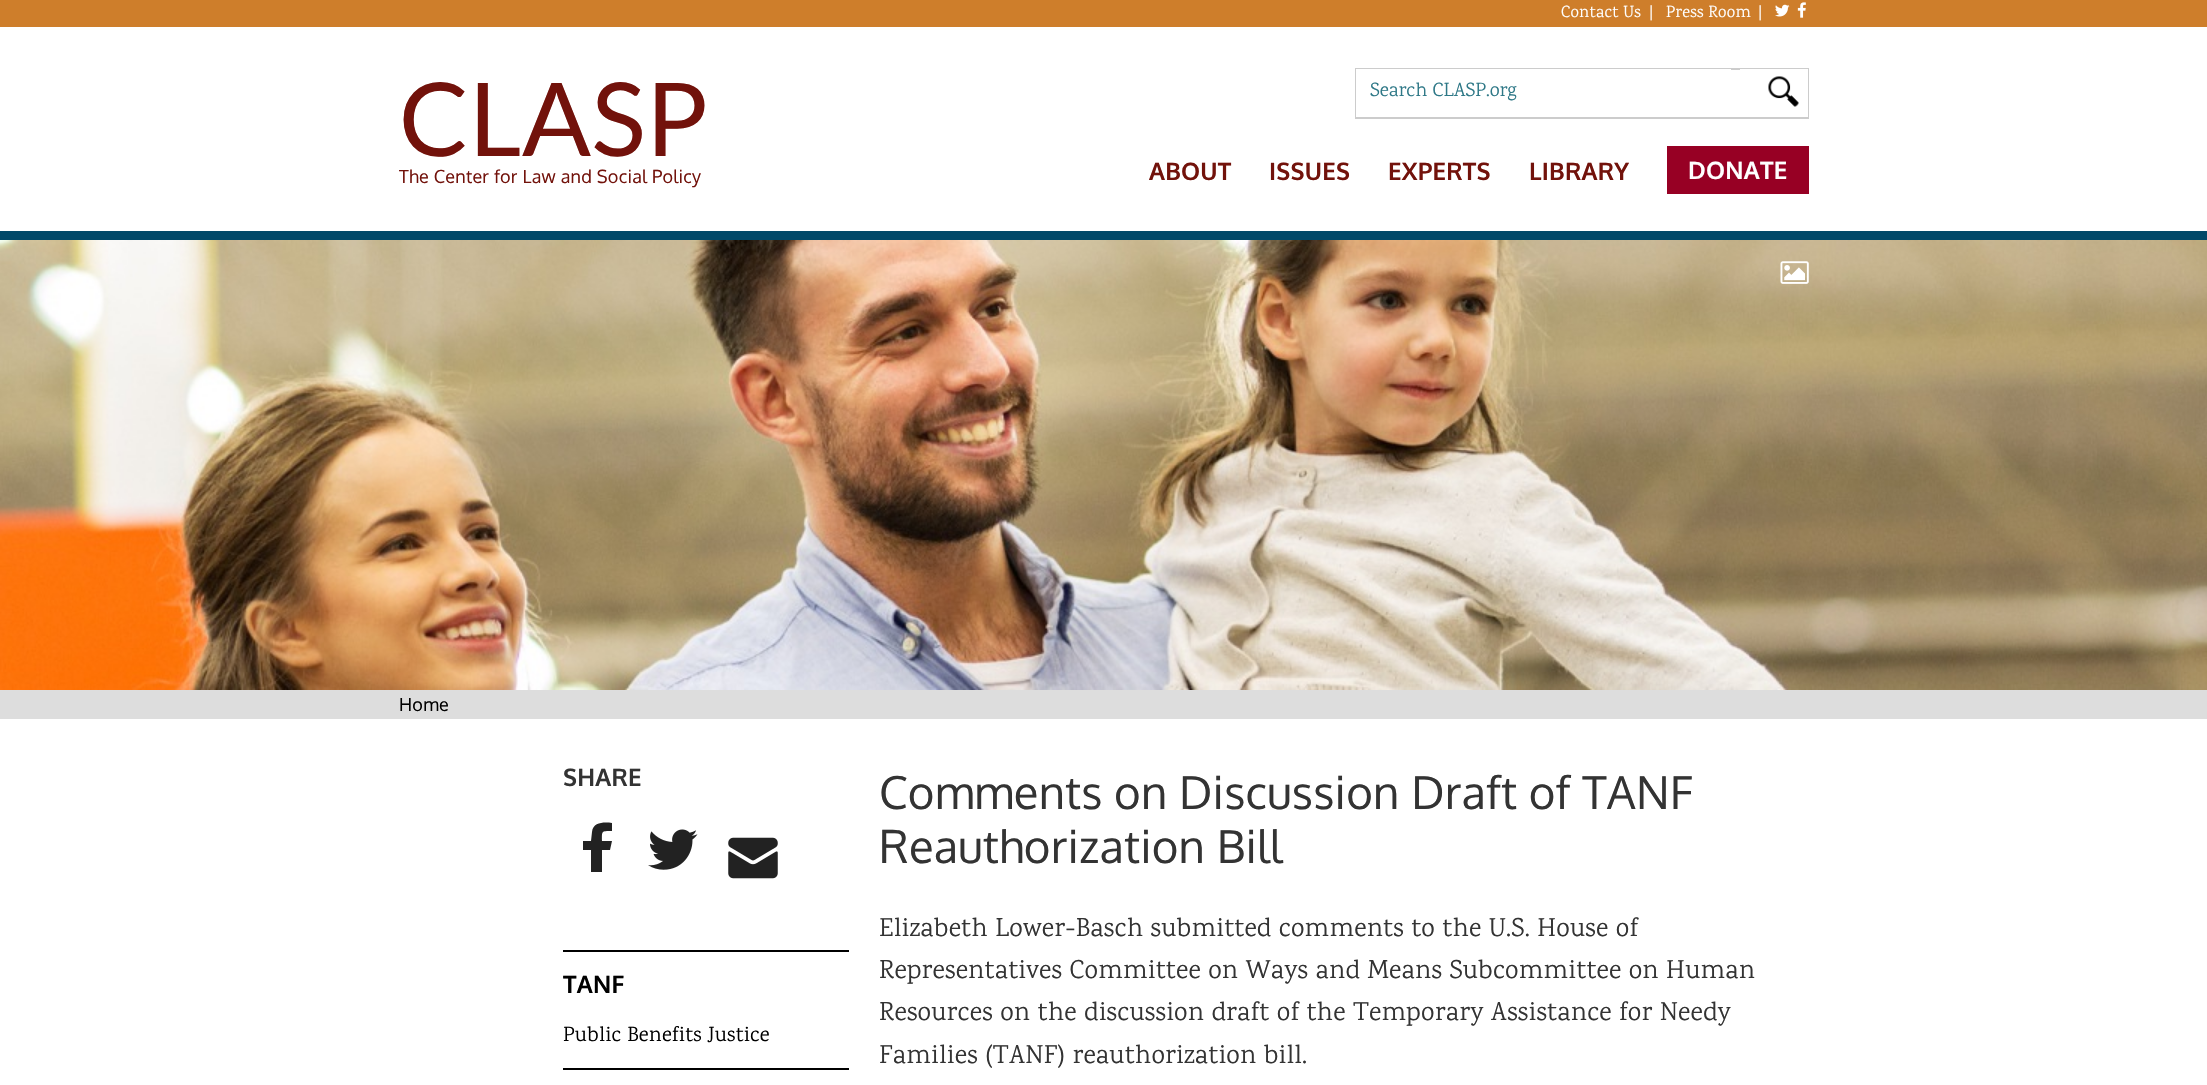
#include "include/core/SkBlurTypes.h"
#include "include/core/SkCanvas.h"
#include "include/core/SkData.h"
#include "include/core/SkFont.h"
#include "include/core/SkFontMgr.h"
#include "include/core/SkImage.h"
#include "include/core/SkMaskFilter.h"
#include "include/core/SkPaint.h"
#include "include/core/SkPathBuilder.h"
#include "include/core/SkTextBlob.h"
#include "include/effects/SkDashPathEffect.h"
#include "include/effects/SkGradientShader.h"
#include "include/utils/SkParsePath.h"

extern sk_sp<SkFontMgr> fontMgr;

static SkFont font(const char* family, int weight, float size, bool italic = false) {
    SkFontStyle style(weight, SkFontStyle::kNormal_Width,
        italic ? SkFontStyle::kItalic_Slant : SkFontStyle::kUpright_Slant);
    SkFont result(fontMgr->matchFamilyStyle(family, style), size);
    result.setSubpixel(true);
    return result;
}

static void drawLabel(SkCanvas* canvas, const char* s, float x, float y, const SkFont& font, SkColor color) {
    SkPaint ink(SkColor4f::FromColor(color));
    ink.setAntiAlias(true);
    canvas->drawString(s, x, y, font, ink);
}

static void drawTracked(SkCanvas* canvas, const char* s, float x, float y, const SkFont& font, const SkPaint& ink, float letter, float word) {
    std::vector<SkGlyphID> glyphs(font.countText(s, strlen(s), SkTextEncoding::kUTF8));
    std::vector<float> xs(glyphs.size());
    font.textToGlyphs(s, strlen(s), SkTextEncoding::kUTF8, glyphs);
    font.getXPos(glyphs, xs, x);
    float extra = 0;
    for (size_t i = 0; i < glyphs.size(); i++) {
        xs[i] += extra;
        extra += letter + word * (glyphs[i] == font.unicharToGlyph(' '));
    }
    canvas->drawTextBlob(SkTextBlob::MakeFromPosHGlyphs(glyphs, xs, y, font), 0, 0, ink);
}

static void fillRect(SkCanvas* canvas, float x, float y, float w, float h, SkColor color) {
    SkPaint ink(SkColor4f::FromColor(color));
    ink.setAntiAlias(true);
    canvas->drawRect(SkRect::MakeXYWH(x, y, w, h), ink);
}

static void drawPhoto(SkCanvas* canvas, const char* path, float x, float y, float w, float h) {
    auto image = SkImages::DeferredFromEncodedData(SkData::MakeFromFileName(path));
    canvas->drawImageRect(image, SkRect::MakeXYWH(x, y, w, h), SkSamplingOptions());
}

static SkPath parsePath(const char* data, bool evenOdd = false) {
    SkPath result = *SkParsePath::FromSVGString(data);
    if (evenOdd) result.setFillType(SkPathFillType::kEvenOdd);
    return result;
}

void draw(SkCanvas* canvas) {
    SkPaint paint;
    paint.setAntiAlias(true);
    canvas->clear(0xFFFFFFFF);
    fillRect(canvas, 0, 0, 2207, 27, 0xFFCE7E2B);
    SkFont font1 = font("Karma", 400, 16.5f);
    paint.setColor(0xFFFFFFFF);
    drawTracked(canvas, "Contact Us", 1561, 17, font1, paint, 0.25f, 0);
    drawTracked(canvas, "|", 1649, 17, font1, paint, 0.25f, 0);
    drawTracked(canvas, "Press Room", 1666, 17, font1, paint, 0.25f, 0);
    drawTracked(canvas, "|", 1758, 17, font1, paint, 0.25f, 0);
    drawPhoto(canvas, "assets/img1.png", 1775, 4, 15, 13);
    drawPhoto(canvas, "assets/img2.png", 1797, 2, 9, 16);
    SkFont font2 = font("Lato", 400, 102);
    paint.setColor(0xFF72120B);
    drawTracked(canvas, "CLASP", 399, 156, font2, paint, 0.25f, 0);
    SkFont font3 = font("Oxygen", 400, 18);
    drawTracked(canvas, "The Center for Law and Social Policy", 399, 183, font3, paint, 0.25f, 0);
    paint.setStroke(true);
    paint.setStrokeWidth(2);
    paint.setColor(0xFFCCCCCC);
    canvas->drawRect(SkRect::MakeXYWH(1356, 69, 452, 49), paint);
    fillRect(canvas, 1356, 69, 375, 48, 0xFFFFFFFF);
    SkFont font4 = font("Karma", 400, 19.5f);
    drawLabel(canvas, "Search CLASP.org", 1370, 96, font4, 0xFF2E7887);
    fillRect(canvas, 1740, 69, 68, 48, 0xFFFFFFFF);
    drawPhoto(canvas, "assets/img3.png", 1768, 76, 31, 31);
    SkFont font5 = font("Oxygen", 700, 24);
    paint.setStroke(false);
    paint.setColor(0xFF72120B);
    drawTracked(canvas, "ABOUT", 1149, 180, font5, paint, 0.25f, 0);
    drawTracked(canvas, "ISSUES", 1269, 180, font5, paint, 0.25f, 0);
    drawTracked(canvas, "EXPERTS", 1388, 180, font5, paint, 0.25f, 0);
    drawTracked(canvas, "LIBRARY", 1529, 180, font5, paint, 0.25f, 0);
    fillRect(canvas, 1667, 146, 142, 48, 0xFF970024);
    paint.setColor(0xFFFFFFFF);
    drawTracked(canvas, "DONATE", 1688, 179, font5, paint, 0.25f, 0);
    fillRect(canvas, 0, 231, 2207, 9, 0xFF014868);
    drawPhoto(canvas, "assets/img4.png", 0, 240, 2207, 450);
    drawPhoto(canvas, "assets/img5.png", 1780, 261, 29, 23);
    fillRect(canvas, 0, 690, 2207, 29, 0xFFDDDDDD);
    paint.setColor(0xFF000000);
    drawTracked(canvas, "Home", 399, 711, font3, paint, 0.25f, 0);
    fillRect(canvas, 563, 950, 286, 2, 0xFF000000);
    paint.setColor(0xFF333333);
    drawTracked(canvas, "SHARE", 563, 786, font5, paint, 0.25f, 0);
    paint.setColor(0xFF222222);
    canvas->drawPath(parsePath("M612 823C604 822 593 822 592 832L591 841H583V850H591V872H602V850H610L612 841H602C602 831 601 831 612 831Z", true), paint);
    drawPhoto(canvas, "assets/img6.png", 648, 829, 50, 41);
    drawPhoto(canvas, "assets/img7.png", 728, 837, 50, 42);
    fillRect(canvas, 563, 1068, 286, 2, 0xFF000000);
    paint.setColor(0xFF000000);
    drawTracked(canvas, "TANF", 563, 993, font5, paint, 0.25f, 0);
    SkFont font6 = font("Karma", 400, 21);
    drawTracked(canvas, "Public Benefits Justice", 563, 1041, font6, paint, 0.25f, 0);
    SkFont font7 = font("Oxygen", 400, 45.4f);
    paint.setColor(0xFF333333);
    drawTracked(canvas, "Comments on Discussion Draft of TANF", 879, 809, font7, paint, 0.25f, 0);
    drawTracked(canvas, "Reauthorization Bill", 879, 863, font7, paint, 0.25f, 0);
    SkFont font8 = font("Karma", 400, 26.4f);
    drawTracked(canvas, "Elizabeth Lower-Basch submitted comments to the U.S. House of", 879, 936, font8, paint, 0.25f, 0);
    drawTracked(canvas, "Representatives Committee on Ways and Means Subcommittee on Human", 879, 978, font8, paint, 0.25f, 0);
    drawTracked(canvas, "Resources on the discussion draft of the Temporary Assistance for Needy", 879, 1020, font8, paint, 0.25f, 0);
    drawTracked(canvas, "Families (TANF) reauthorization bill.", 879, 1063, font8, paint, 0.25f, 0);
}
